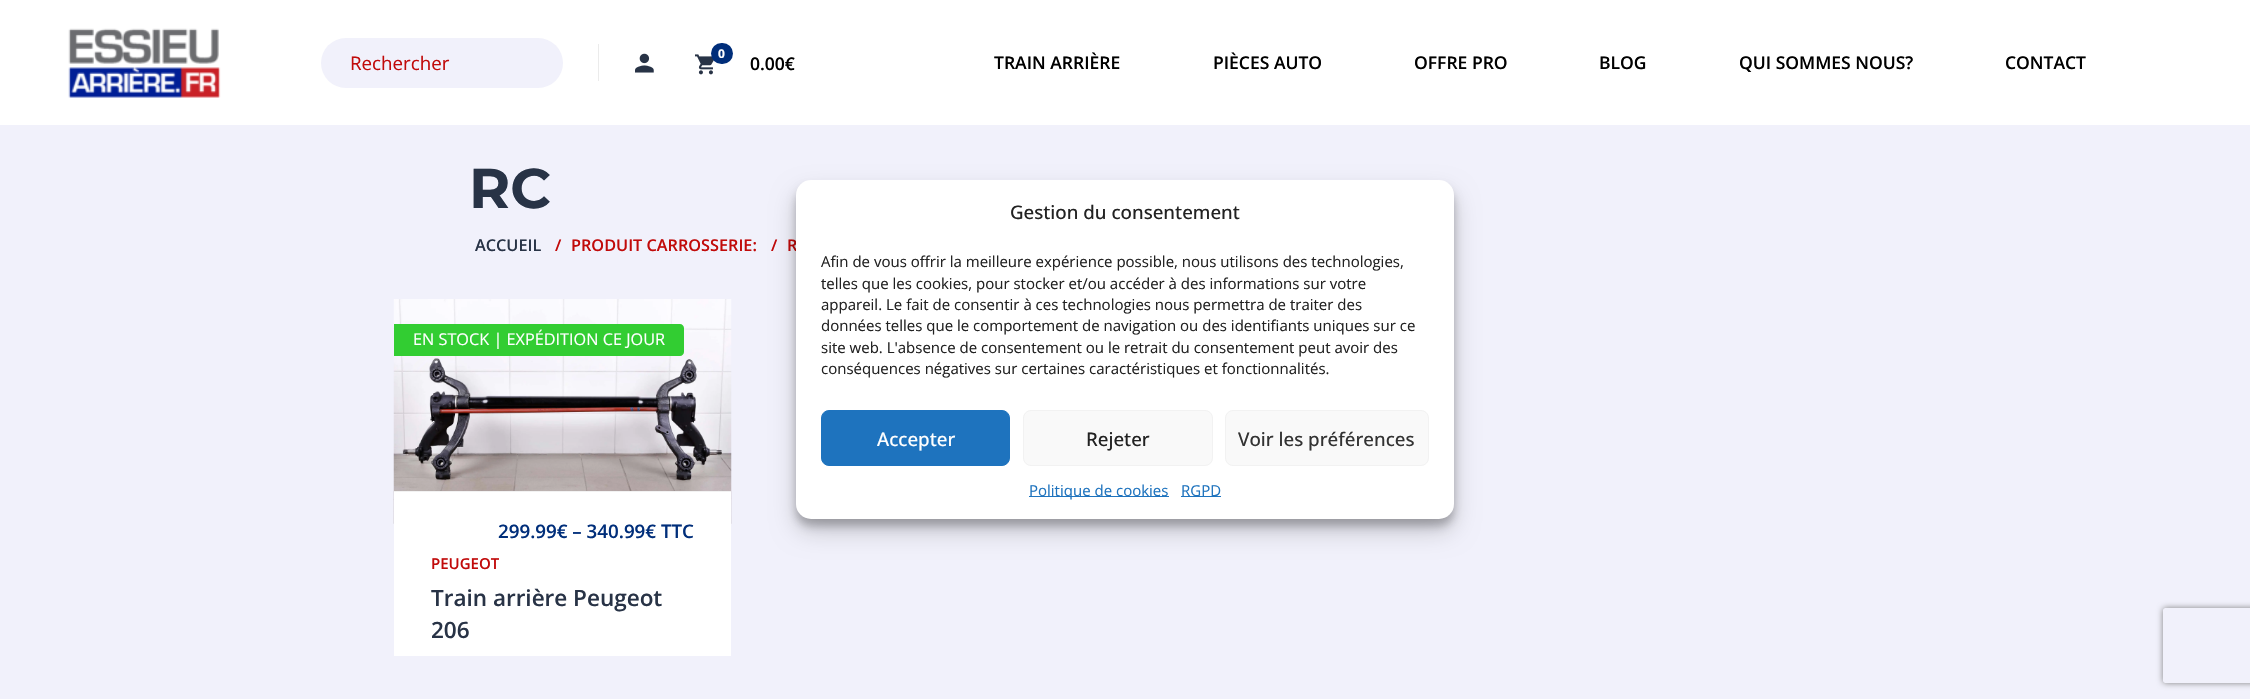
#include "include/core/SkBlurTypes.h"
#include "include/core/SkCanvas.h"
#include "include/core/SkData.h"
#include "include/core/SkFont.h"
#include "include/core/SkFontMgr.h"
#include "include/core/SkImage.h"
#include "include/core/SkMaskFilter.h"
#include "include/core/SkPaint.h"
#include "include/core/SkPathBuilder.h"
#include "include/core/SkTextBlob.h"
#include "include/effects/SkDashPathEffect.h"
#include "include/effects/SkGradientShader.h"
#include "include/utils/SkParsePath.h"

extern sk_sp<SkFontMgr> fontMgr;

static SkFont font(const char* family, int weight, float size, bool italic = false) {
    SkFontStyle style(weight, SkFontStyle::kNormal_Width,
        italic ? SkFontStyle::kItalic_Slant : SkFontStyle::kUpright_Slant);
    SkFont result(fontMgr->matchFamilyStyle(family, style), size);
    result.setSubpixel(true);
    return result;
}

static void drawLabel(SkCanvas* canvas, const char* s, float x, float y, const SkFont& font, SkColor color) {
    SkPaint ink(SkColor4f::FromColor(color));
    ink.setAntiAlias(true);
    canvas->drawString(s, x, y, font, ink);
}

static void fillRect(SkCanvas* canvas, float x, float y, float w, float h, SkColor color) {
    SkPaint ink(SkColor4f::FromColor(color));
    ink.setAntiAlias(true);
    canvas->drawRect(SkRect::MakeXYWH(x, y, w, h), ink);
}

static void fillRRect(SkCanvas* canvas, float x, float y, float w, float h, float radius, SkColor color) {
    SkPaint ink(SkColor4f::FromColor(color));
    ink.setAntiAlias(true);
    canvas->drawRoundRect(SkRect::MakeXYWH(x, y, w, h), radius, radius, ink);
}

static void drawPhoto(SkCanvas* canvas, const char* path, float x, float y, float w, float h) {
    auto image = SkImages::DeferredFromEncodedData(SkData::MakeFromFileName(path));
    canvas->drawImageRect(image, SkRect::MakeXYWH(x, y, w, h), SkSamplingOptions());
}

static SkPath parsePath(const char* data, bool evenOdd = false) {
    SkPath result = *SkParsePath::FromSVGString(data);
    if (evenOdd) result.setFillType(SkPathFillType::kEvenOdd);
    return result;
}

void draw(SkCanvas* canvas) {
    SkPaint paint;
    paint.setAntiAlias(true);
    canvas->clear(0xFFF1F1FB);
    fillRect(canvas, 0, 0, 2250, 125, 0xFFFFFFFF);
    drawPhoto(canvas, "assets/img1.png", 68, 28, 153, 70);
    fillRRect(canvas, 321, 38, 242, 50, 25, 0xFFF1F1FB);
    SkFont font1 = font("Open Sans", 400, 18.75f);
    drawLabel(canvas, "Rechercher", 350, 70, font1, 0xFFC10A0A);
    fillRect(canvas, 598, 44, 1, 37, 0xFFEBEBEB);
    drawPhoto(canvas, "assets/img2.png", 635, 53, 19, 20);
    drawPhoto(canvas, "assets/img3.png", 695, 54, 19, 21);
    fillRRect(canvas, 711, 43, 22, 21, 10.5f, 0xFF002E7A);
    SkFont font2 = font("Open Sans", 700, 12);
    drawLabel(canvas, "0", 718, 58, font2, 0xFFFFFFFF);
    SkFont font3 = font("Open Sans", 600, 17.5f);
    drawLabel(canvas, "0.00€", 750, 70, font3, 0xFF000000);
    drawLabel(canvas, "TRAIN ARRIÈRE", 994, 69, font3, 0xFF000000);
    drawLabel(canvas, "PIÈCES AUTO", 1213, 69, font3, 0xFF000000);
    drawLabel(canvas, "OFFRE PRO", 1414, 69, font3, 0xFF000000);
    drawLabel(canvas, "BLOG", 1599, 69, font3, 0xFF000000);
    drawLabel(canvas, "QUI SOMMES NOUS?", 1739, 69, font3, 0xFF000000);
    drawLabel(canvas, "CONTACT", 2005, 69, font3, 0xFF000000);
    SkFont font4 = font("Montserrat", 100, 56);
    drawLabel(canvas, "RC", 469, 208, font4, 0xFF283346);
    SkFont font5 = font("Open Sans", 600, 16.25f);
    drawLabel(canvas, "ACCUEIL", 475, 251, font5, 0xFF283346);
    drawLabel(canvas, "/", 555, 251, font5, 0xFFC10A0A);
    drawLabel(canvas, "PRODUIT CARROSSERIE:", 571, 251, font5, 0xFFC10A0A);
    drawLabel(canvas, "/", 771, 251, font5, 0xFFC10A0A);
    drawLabel(canvas, "R", 787, 251, font5, 0xFFC10A0A);
    drawPhoto(canvas, "assets/img4.png", 393, 299, 339, 225);
    paint.setColor(0xFF32CD32);
    canvas->drawPath(parsePath("M394 324H680C682 324 684 326 684 328V352C684 354 682 356 680 356H394Z"), paint);
    SkFont font6 = font("Open Sans", 400, 16.25f);
    drawLabel(canvas, "EN STOCK | EXPÉDITION CE JOUR", 413, 345, font6, 0xFFFFFFFF);
    fillRect(canvas, 394, 492, 337, 164, 0xFFFFFFFF);
    fillRect(canvas, 394, 491, 337, 1, 0xFFF2F2F2);
    SkFont font7 = font("Open Sans", 600, 18.75f);
    drawLabel(canvas, "299.99€ – 340.99€ TTC", 498, 538, font7, 0xFF002E7A);
    SkFont font8 = font("Open Sans", 600, 15);
    drawLabel(canvas, "PEUGEOT", 431, 569, font8, 0xFFC10A0A);
    SkFont font9 = font("Open Sans", 600, 22.5f);
    drawLabel(canvas, "Train arrière Peugeot", 431, 606, font9, 0xFF283346);
    drawLabel(canvas, "206", 431, 638, font9, 0xFF283346);
    paint.setColor(0x3B000000);
    paint.setMaskFilter(SkMaskFilter::MakeBlur(kNormal_SkBlurStyle, 4));
    canvas->drawRoundRect(SkRect::MakeXYWH(796, 188, 658, 338), 15, 15, paint);
    paint.setMaskFilter(nullptr);
    paint.setColor(0x30000000);
    paint.setMaskFilter(SkMaskFilter::MakeBlur(kNormal_SkBlurStyle, 12.5f));
    canvas->drawRoundRect(SkRect::MakeXYWH(796, 193, 658, 338), 15, 15, paint);
    paint.setMaskFilter(nullptr);
    fillRRect(canvas, 796, 180, 658, 339, 15, 0xFFFFFFFF);
    SkFont font10 = font("Open Sans", 500, 18.75f);
    drawLabel(canvas, "Gestion du consentement", 1010, 219, font10, 0xFF222222);
    SkFont font11 = font("Open Sans", 400, 15);
    drawLabel(canvas, "Afin de vous offrir la meilleure expérience possible, nous utilisons des technologies,", 821, 267, font11, 0xFF222222);
    drawLabel(canvas, "telles que les cookies, pour stocker et/ou accéder à des informations sur votre", 821, 289, font11, 0xFF222222);
    drawLabel(canvas, "appareil. Le fait de consentir à ces technologies nous permettra de traiter des", 821, 310, font11, 0xFF222222);
    drawLabel(canvas, "données telles que le comportement de navigation ou des identifiants uniques sur ce", 821, 331, font11, 0xFF222222);
    drawLabel(canvas, "site web. L'absence de consentement ou le retrait du consentement peut avoir des", 821, 353, font11, 0xFF222222);
    drawLabel(canvas, "conséquences négatives sur certaines caractéristiques et fonctionnalités.", 821, 374, font11, 0xFF222222);
    paint.setColor(0xFF1E73BE);
    canvas->drawRoundRect(SkRect::MakeXYWH(821.5f, 410.5f, 188, 55), 7.5f, 7.5f, paint);
    paint.setStroke(true);
    paint.setStrokeWidth(1);
    canvas->drawRoundRect(SkRect::MakeXYWH(821.5f, 410.5f, 188, 55), 7.5f, 7.5f, paint);
    drawLabel(canvas, "Accepter", 877, 446, font10, 0xFFFFFFFF);
    paint.setStroke(false);
    paint.setColor(0xFFF9F9F9);
    canvas->drawRoundRect(SkRect::MakeXYWH(1023.5f, 410.5f, 189, 55), 7.5f, 7.5f, paint);
    paint.setStroke(true);
    paint.setColor(0xFFF2F2F2);
    canvas->drawRoundRect(SkRect::MakeXYWH(1023.5f, 410.5f, 189, 55), 7.5f, 7.5f, paint);
    drawLabel(canvas, "Rejeter", 1086, 446, font10, 0xFF222222);
    paint.setStroke(false);
    paint.setColor(0xFFF9F9F9);
    canvas->drawRoundRect(SkRect::MakeXYWH(1225.5f, 410.5f, 203, 55), 7.5f, 7.5f, paint);
    paint.setStroke(true);
    paint.setColor(0xFFF2F2F2);
    canvas->drawRoundRect(SkRect::MakeXYWH(1225.5f, 410.5f, 203, 55), 7.5f, 7.5f, paint);
    drawLabel(canvas, "Voir les préférences", 1238, 446, font10, 0xFF333333);
    fillRect(canvas, 1029, 496, 140, 1, 0xFF1E73BE);
    drawLabel(canvas, "Politique de cookies", 1029, 496, font11, 0xFF1E73BE);
    fillRect(canvas, 1181, 496, 40, 1, 0xFF1E73BE);
    drawLabel(canvas, "RGPD", 1181, 496, font11, 0xFF1E73BE);
    canvas->save();
    canvas->clipPath(parsePath("M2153 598H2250V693H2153ZM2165.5 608H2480.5C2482 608 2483 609 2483 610.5V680.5C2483 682 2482 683 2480.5 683H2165.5C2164 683 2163 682 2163 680.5V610.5C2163 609 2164 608 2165.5 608Z", true), true);
    paint.setStroke(false);
    paint.setColor(0xFF808080);
    paint.setMaskFilter(SkMaskFilter::MakeBlur(kNormal_SkBlurStyle, 3));
    canvas->drawRoundRect(SkRect::MakeXYWH(2163, 608, 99, 75), 2.5f, 2.5f, paint);
    paint.setMaskFilter(nullptr);
    canvas->restore();
}
